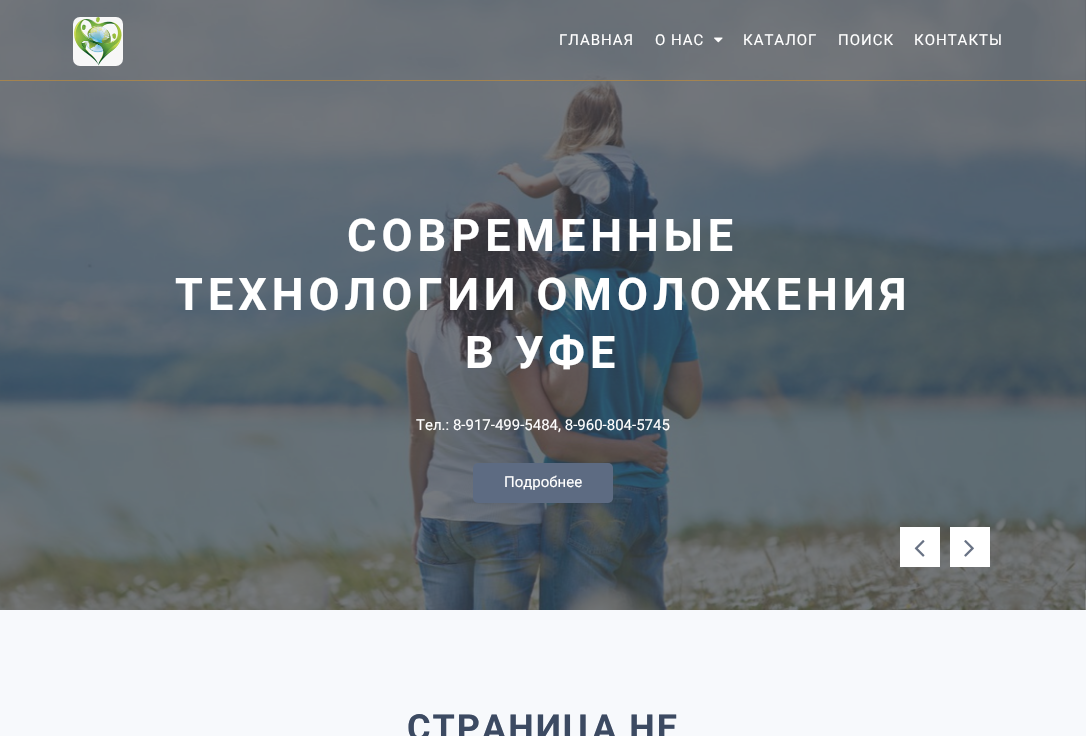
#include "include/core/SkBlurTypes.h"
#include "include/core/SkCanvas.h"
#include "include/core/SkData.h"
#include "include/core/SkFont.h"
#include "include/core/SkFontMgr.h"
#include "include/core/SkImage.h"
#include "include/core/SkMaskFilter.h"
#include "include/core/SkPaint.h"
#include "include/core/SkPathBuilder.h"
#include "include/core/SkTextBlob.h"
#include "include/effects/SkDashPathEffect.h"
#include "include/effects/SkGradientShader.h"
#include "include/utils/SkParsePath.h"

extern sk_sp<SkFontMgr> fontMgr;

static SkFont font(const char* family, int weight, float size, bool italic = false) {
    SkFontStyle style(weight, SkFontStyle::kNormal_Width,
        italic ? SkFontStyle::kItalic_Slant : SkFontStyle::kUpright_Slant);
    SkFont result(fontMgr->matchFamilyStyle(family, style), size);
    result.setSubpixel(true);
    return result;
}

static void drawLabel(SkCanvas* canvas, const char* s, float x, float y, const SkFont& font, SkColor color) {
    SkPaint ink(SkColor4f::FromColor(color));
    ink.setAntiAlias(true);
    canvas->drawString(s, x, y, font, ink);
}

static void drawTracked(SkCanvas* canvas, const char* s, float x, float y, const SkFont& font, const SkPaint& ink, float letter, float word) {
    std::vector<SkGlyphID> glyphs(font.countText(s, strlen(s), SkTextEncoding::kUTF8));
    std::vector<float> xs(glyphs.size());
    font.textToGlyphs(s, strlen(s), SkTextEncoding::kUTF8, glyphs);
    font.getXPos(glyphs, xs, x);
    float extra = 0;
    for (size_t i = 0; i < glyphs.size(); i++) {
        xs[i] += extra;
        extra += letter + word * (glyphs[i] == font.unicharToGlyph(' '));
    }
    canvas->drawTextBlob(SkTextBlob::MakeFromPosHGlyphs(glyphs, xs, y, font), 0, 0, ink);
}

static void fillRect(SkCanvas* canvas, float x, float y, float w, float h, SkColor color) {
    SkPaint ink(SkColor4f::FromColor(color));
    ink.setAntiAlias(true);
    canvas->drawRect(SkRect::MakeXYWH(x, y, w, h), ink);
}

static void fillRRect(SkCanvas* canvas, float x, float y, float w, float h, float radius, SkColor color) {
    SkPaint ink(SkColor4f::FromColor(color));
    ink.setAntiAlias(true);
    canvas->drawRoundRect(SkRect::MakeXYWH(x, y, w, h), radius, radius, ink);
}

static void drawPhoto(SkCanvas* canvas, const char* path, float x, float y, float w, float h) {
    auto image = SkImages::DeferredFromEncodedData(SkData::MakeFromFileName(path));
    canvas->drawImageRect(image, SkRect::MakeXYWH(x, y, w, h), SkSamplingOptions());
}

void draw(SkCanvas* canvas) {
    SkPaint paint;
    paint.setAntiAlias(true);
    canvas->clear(0xFFFFFFFF);
    drawPhoto(canvas, "assets/img3.png", 1085, 0, 1, 590);
    drawPhoto(canvas, "assets/img4.png", 0, 0, 1086, 610);
    fillRect(canvas, 0, 80, 1086, 1, 0x66F39C12);
    drawPhoto(canvas, "assets/img1.png", 73, 17, 50, 49);
    SkFont font1 = font("Roboto", 400, 15);
    paint.setColor(0xFFFFFFFF);
    drawTracked(canvas, "ГЛАВНАЯ", 559, 45, font1, paint, 1, 0);
    drawTracked(canvas, "О НАС", 655, 45, font1, paint, 1, 0);
    drawPhoto(canvas, "assets/img2.png", 714, 37, 9, 6);
    drawTracked(canvas, "КАТАЛОГ", 743, 45, font1, paint, 1, 0);
    drawTracked(canvas, "ПОИСК", 838, 45, font1, paint, 1, 0);
    drawTracked(canvas, "КОНТАКТЫ", 914, 45, font1, paint, 1, 0);
    SkFont font2 = font("Roboto", 700, 45);
    drawTracked(canvas, "СОВРЕМЕННЫЕ", 347, 251, font2, paint, 5, 0);
    drawTracked(canvas, "ТЕХНОЛОГИИ ОМОЛОЖЕНИЯ", 175, 310, font2, paint, 5, 0);
    drawTracked(canvas, "В УФЕ", 465, 368, font2, paint, 5, 0);
    drawLabel(canvas, "Тел.: 8-917-499-5484, 8-960-804-5745", 416, 430, font1, 0xFFFFFFFF);
    fillRRect(canvas, 473, 463, 140, 40, 5, 0xFF5D6B82);
    drawLabel(canvas, "Подробнее", 504, 487, font1, 0xFFFFFFFF);
    fillRect(canvas, 900, 527, 40, 40, 0xFFFFFFFF);
    drawPhoto(canvas, "assets/img5.png", 914, 540, 11, 17);
    fillRect(canvas, 950, 527, 40, 40, 0xFFFFFFFF);
    drawPhoto(canvas, "assets/img6.png", 964, 540, 10, 17);
    fillRect(canvas, 0, 610, 1086, 126, 0xFFF7F9FC);
    SkFont font3 = font("Roboto", 700, 36);
    paint.setColor(0xFF3C4A62);
    drawTracked(canvas, "СТРАНИЦА НЕ", 407, 740, font3, paint, 2, 0);
}
